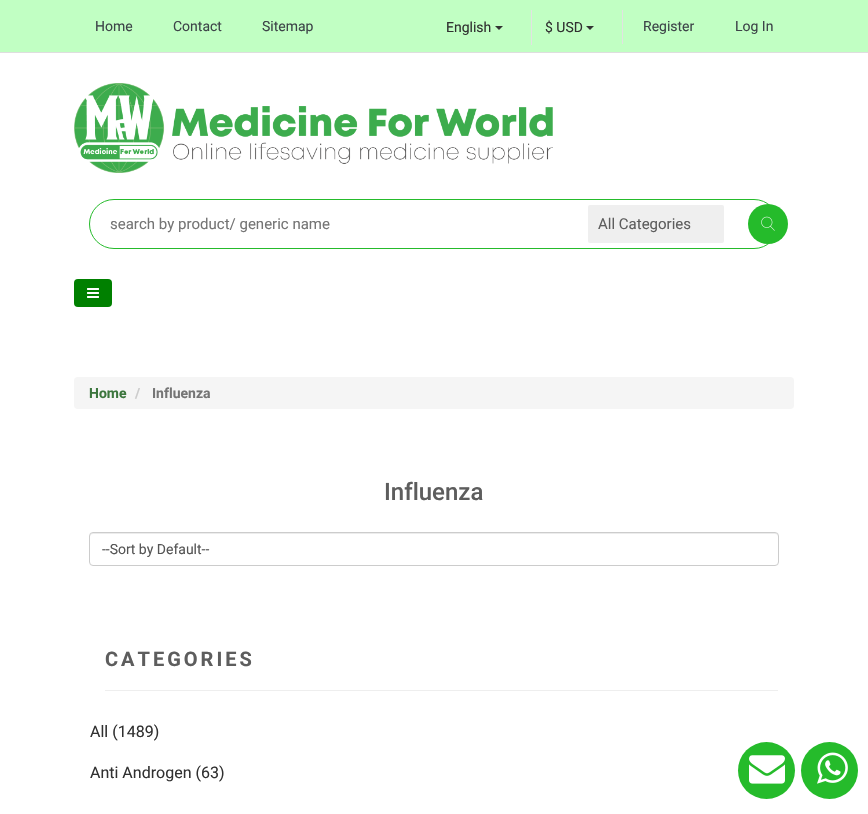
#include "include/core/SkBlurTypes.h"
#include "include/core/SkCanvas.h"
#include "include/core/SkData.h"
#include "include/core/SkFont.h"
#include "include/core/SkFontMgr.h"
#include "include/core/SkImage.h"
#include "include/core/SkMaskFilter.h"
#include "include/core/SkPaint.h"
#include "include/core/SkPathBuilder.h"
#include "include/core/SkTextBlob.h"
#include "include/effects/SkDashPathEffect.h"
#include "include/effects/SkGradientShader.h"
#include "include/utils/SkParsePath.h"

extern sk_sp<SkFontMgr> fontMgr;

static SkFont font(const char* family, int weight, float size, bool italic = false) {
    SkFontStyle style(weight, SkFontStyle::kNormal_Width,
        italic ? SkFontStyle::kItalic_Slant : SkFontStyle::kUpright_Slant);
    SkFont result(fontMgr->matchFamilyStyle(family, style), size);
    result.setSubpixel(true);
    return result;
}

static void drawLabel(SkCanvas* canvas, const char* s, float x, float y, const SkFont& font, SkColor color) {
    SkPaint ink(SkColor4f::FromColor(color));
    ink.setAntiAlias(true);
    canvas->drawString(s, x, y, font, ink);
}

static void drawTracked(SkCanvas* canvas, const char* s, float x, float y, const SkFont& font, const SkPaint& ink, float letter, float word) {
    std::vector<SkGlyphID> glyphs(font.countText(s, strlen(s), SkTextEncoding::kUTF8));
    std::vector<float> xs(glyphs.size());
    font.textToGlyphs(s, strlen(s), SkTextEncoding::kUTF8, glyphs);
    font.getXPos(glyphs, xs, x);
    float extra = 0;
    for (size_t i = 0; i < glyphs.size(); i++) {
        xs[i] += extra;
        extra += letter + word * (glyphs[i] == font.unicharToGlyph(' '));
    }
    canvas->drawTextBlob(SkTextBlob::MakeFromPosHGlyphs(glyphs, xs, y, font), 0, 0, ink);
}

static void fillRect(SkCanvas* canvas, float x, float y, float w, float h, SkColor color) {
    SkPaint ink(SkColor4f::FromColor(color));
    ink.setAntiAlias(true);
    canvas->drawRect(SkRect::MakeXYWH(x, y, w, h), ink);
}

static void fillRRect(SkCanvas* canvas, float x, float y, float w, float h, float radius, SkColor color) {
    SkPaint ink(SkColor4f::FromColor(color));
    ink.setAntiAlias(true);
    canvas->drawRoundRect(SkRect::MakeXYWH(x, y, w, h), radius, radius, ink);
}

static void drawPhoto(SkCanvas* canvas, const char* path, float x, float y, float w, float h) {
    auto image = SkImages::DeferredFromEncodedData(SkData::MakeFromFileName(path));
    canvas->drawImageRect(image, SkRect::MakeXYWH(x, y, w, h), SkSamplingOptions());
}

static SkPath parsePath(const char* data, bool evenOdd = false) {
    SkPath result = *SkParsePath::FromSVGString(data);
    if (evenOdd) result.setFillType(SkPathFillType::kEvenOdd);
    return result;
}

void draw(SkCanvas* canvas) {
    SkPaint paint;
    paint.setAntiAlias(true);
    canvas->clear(0xFFFFFFFF);
    fillRect(canvas, 0, 0, 868, 52, 0xFFC1FFC3);
    fillRect(canvas, 0, 52, 868, 1, 0xFFDEDEDE);
    SkFont font1 = font("Roboto", 400, 14);
    drawLabel(canvas, "Home", 95, 31, font1, 0xFF3D4448);
    drawLabel(canvas, "Contact", 173, 31, font1, 0xFF3D4448);
    drawLabel(canvas, "Sitemap", 262, 31, font1, 0xFF3D4448);
    fillRect(canvas, 531, 10, 1, 35, 0xFFE2E2E2);
    drawLabel(canvas, "English", 446, 32, font1, 0xFF313131);
    paint.setColor(0xFF333333);
    canvas->drawPath(parsePath("M495 26H503L499 30Z"), paint);
    fillRect(canvas, 622, 10, 1, 34, 0xFFE2E2E2);
    drawLabel(canvas, "$ USD", 545, 32, font1, 0xFF313131);
    canvas->drawPath(parsePath("M586 26H594L590 30Z"), paint);
    drawLabel(canvas, "Register", 643, 31, font1, 0xFF3D4448);
    drawLabel(canvas, "Log In", 735, 31, font1, 0xFF3D4448);
    drawPhoto(canvas, "assets/img1.png", 74, 83, 479, 90);
    paint.setStroke(true);
    paint.setStrokeWidth(1);
    paint.setColor(0xFF25BB2B);
    canvas->drawRoundRect(SkRect::MakeXYWH(89.5f, 199.5f, 689, 49), 24.5f, 24.5f, paint);
    SkFont font2 = font("Roboto", 400, 15);
    drawLabel(canvas, "search by product/ generic name", 110, 229, font2, 0xFF757575);
    fillRRect(canvas, 588, 205, 136, 38, 2, 0xFFEFEFEF);
    drawLabel(canvas, "All Categories", 598, 229, font2, 0xFF5D5D5D);
    paint.setStroke(false);
    canvas->drawCircle(768, 224, 20, paint);
    drawPhoto(canvas, "assets/img2.png", 761, 216, 14, 15);
    fillRRect(canvas, 74, 279, 38, 28, 4, 0xFF008000);
    drawPhoto(canvas, "assets/img3.png", 87, 288, 12, 10);
    fillRRect(canvas, 74, 377, 720, 32, 4, 0xFFF5F5F5);
    SkFont font3 = font("Roboto", 700, 14);
    drawLabel(canvas, "Home", 89, 398, font3, 0xFF3C763D);
    drawLabel(canvas, "/", 135, 398, font3, 0xFFCCCCCC);
    drawLabel(canvas, "Influenza", 152, 398, font3, 0xFF757575);
    SkFont font4 = font("Roboto", 500, 24);
    drawLabel(canvas, "Influenza", 384, 500, font4, 0xFF5D5D5D);
    paint.setColor(0xFFECECEC);
    canvas->drawPath(parsePath("M93 534H775C777 534 778 535 778 537V536C778 534 777 533 775 533H93C91 533 90 534 90 536V537C90 535 91 534 93 534Z"), paint);
    paint.setStroke(true);
    paint.setColor(0xFFCCCCCC);
    canvas->drawRoundRect(SkRect::MakeXYWH(89.5f, 532.5f, 689, 33), 3.5f, 3.5f, paint);
    drawLabel(canvas, "--Sort by Default--", 102, 554, font1, 0xFF555555);
    SkFont font5 = font("Roboto", 700, 20);
    paint.setStroke(false);
    paint.setColor(0xFF5D5D5D);
    drawTracked(canvas, "CATEGORIES", 105, 666, font5, paint, 3, 0);
    fillRect(canvas, 105, 690, 673, 1, 0xFFEEEEEE);
    SkFont font6 = font("Roboto", 400, 16);
    drawLabel(canvas, "All (1489)", 90, 737, font6, 0xFF313131);
    drawLabel(canvas, "Anti Androgen (63)", 90, 778, font6, 0xFF313131);
    paint.setColor(0xFF25BB2B);
    canvas->drawCircle(766.5f, 770.5f, 28.5f, paint);
    drawPhoto(canvas, "assets/img4.png", 749, 755, 36, 29);
    canvas->drawCircle(829.5f, 770.5f, 28.5f, paint);
    drawPhoto(canvas, "assets/img5.png", 817, 752, 31, 32);
}
